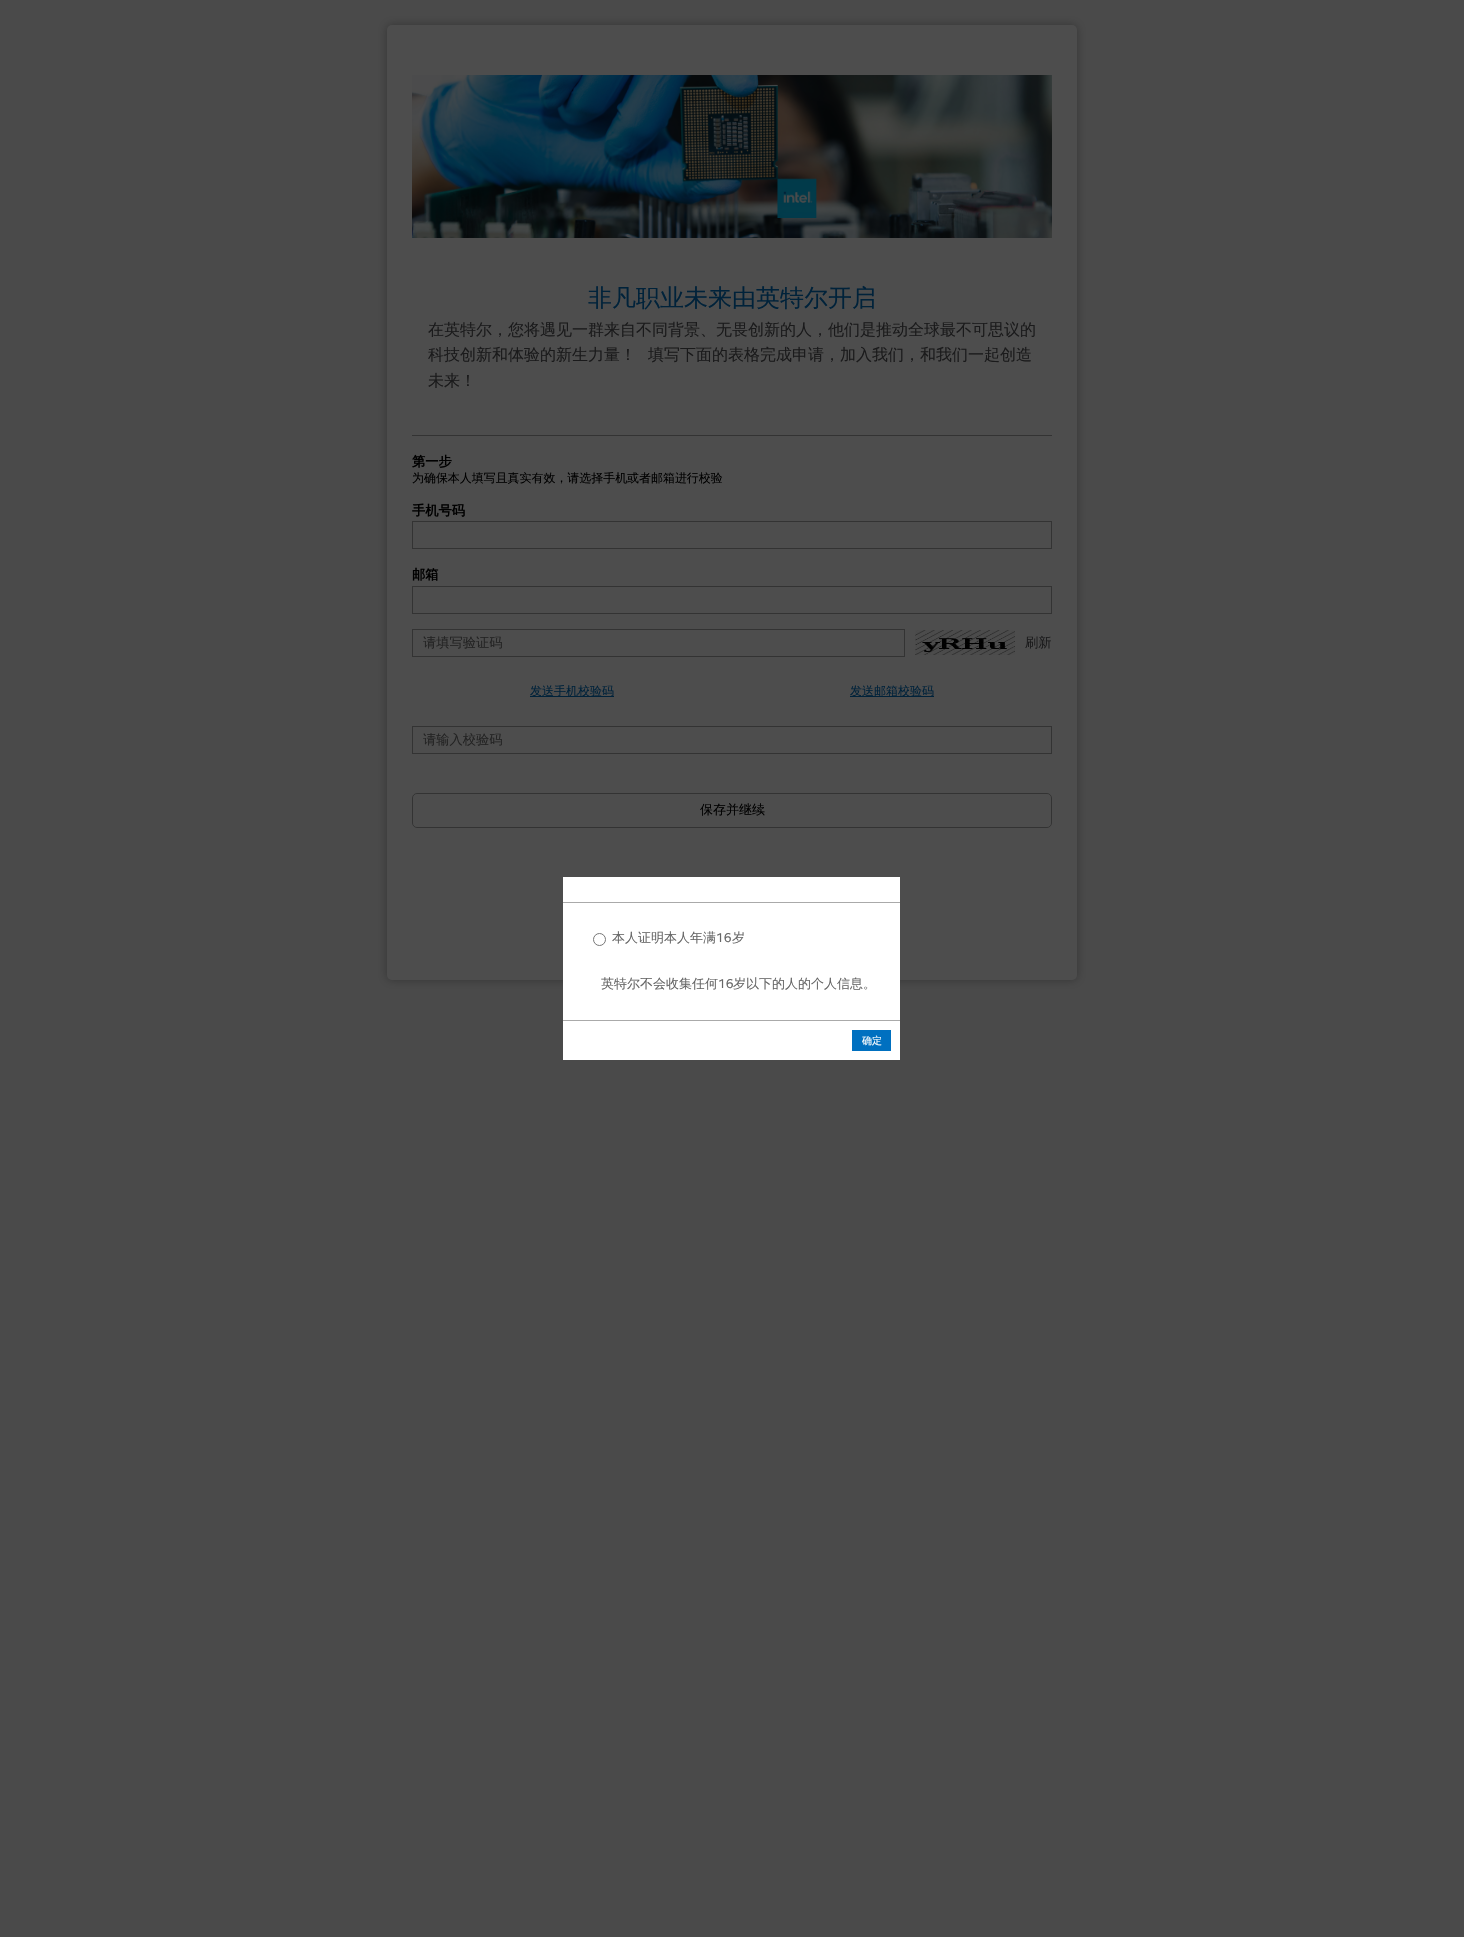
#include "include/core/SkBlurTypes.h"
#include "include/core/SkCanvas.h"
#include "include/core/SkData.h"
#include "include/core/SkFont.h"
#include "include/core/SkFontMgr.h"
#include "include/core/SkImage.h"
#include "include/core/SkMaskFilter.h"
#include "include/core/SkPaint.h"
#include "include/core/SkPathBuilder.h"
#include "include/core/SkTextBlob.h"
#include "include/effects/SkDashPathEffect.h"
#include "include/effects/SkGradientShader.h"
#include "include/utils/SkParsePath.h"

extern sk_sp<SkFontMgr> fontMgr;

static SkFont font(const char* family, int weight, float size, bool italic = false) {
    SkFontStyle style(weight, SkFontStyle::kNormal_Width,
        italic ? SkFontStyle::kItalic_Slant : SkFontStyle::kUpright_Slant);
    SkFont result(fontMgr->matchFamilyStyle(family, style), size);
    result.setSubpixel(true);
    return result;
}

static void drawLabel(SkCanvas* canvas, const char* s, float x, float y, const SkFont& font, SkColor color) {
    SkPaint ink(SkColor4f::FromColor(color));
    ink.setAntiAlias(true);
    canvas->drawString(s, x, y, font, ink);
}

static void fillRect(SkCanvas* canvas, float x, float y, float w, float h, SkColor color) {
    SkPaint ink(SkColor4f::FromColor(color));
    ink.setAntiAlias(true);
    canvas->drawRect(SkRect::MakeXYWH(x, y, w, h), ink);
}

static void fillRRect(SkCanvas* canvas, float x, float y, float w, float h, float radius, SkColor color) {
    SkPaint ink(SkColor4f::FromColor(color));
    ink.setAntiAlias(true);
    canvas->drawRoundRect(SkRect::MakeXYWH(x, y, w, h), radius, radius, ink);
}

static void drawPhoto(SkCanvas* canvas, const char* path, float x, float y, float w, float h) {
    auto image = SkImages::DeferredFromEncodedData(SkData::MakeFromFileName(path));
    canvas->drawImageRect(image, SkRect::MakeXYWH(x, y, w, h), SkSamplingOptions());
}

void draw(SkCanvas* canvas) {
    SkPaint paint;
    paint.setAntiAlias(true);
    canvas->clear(0xFF4A4A4A);
    paint.setColor(0x4D000000);
    paint.setMaskFilter(SkMaskFilter::MakeBlur(kNormal_SkBlurStyle, 5));
    canvas->drawRoundRect(SkRect::MakeXYWH(387, 25, 690, 955), 5, 5, paint);
    paint.setMaskFilter(nullptr);
    fillRRect(canvas, 387, 25, 690, 955, 5, 0xFF4D4D4D);
    drawPhoto(canvas, "assets/img1.png", 412, 75, 640, 163);
    SkFont font1 = font("WenQuanYi Zen Hei", 500, 24);
    drawLabel(canvas, "非凡职业未来由英特尔开启", 588, 306, font1, 0xFF00223A);
    SkFont font2 = font("WenQuanYi Zen Hei", 500, 16);
    drawLabel(canvas, "在英特尔，您将遇见一群来自不同背景、无畏创新的人，他们是推动全球最不可思议的", 428, 335, font2, 0xFF1A1A1B);
    drawLabel(canvas, "科技创新和体验的新生力量！", 428, 360, font2, 0xFF1A1A1B);
    drawLabel(canvas, "填写下面的表格完成申请，加入我们，和我们一起创造", 648, 360, font2, 0xFF1A1A1B);
    drawLabel(canvas, "未来！", 428, 386, font2, 0xFF1A1A1B);
    fillRect(canvas, 412, 435, 640, 1, 0xFF333333);
    SkFont font3 = font("WenQuanYi Zen Hei", 700, 13.25f);
    drawLabel(canvas, "第一步", 412, 466, font3, 0xFF000000);
    SkFont font4 = font("WenQuanYi Zen Hei", 500, 11.95f);
    drawLabel(canvas, "为确保本人填写且真实有效，请选择手机或者邮箱进行校验", 412, 482, font4, 0xFF000000);
    drawLabel(canvas, "手机号码", 412, 515, font3, 0xFF000000);
    paint.setStroke(true);
    paint.setStrokeWidth(1);
    paint.setColor(0xFF333333);
    canvas->drawRect(SkRect::MakeXYWH(412.5f, 521.5f, 639, 27), paint);
    drawLabel(canvas, "邮箱", 412, 579, font3, 0xFF000000);
    canvas->drawRect(SkRect::MakeXYWH(412.5f, 586.5f, 639, 27), paint);
    canvas->drawRect(SkRect::MakeXYWH(412.5f, 629.5f, 492, 27), paint);
    SkFont font5 = font("WenQuanYi Zen Hei", 500, 13.25f);
    drawLabel(canvas, "请填写验证码", 423, 647, font5, 0xFF232323);
    drawPhoto(canvas, "assets/img2.png", 915, 630, 100, 25);
    drawLabel(canvas, "刷新", 1025, 647, font5, 0xFF1A1A1B);
    fillRect(canvas, 530, 696, 84, 1, 0xFF00223A);
    SkFont font6 = font("WenQuanYi Zen Hei", 500, 12);
    drawLabel(canvas, "发送手机校验码", 530, 695, font6, 0xFF00223A);
    fillRect(canvas, 850, 696, 84, 1, 0xFF00223A);
    drawLabel(canvas, "发送邮箱校验码", 850, 695, font6, 0xFF00223A);
    canvas->drawRect(SkRect::MakeXYWH(412.5f, 726.5f, 639, 27), paint);
    drawLabel(canvas, "请输入校验码", 423, 744, font5, 0xFF232323);
    canvas->drawRoundRect(SkRect::MakeXYWH(412.5f, 793.5f, 639, 34), 4.5f, 4.5f, paint);
    SkFont font7 = font("WenQuanYi Zen Hei", 500, 13);
    drawLabel(canvas, "保存并继续", 700, 814, font7, 0xFF000000);
    fillRect(canvas, 563, 877, 337, 183, 0xFFFFFFFF);
    fillRect(canvas, 563, 902, 337, 1, 0xFFAAAAAA);
    fillRect(canvas, 563, 1020, 337, 1, 0xFFAAAAAA);
    paint.setColor(0xFF767676);
    canvas->drawCircle(599.5f, 939.5f, 6, paint);
    drawLabel(canvas, "本人证明本人年满", 612, 942, font7, 0xFF666666);
    SkFont font8 = font("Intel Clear", 400, 13);
    drawLabel(canvas, "16", 716, 942, font8, 0xFF666666);
    drawLabel(canvas, "岁", 732, 942, font7, 0xFF666666);
    drawLabel(canvas, "英特尔不会收集任何", 601, 988, font7, 0xFF666666);
    drawLabel(canvas, "16", 718, 988, font8, 0xFF666666);
    drawLabel(canvas, "岁以下的人的个人信息。", 733, 988, font7, 0xFF666666);
    fillRect(canvas, 852, 1030, 39, 21, 0xFF0070C0);
    SkFont font9 = font("WenQuanYi Zen Hei", 500, 10);
    drawLabel(canvas, "确定", 862, 1044, font9, 0xFFFFFFFF);
}
